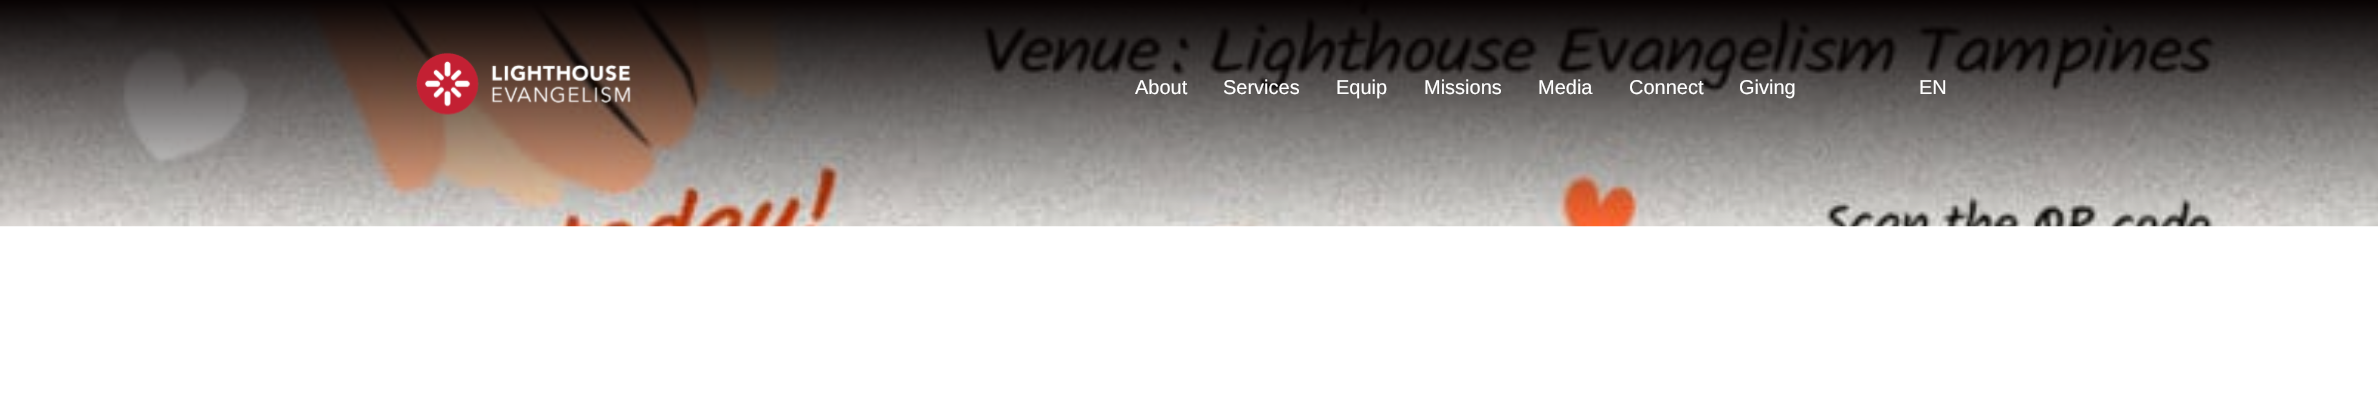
#include "include/core/SkBlurTypes.h"
#include "include/core/SkCanvas.h"
#include "include/core/SkData.h"
#include "include/core/SkFont.h"
#include "include/core/SkFontMgr.h"
#include "include/core/SkImage.h"
#include "include/core/SkMaskFilter.h"
#include "include/core/SkPaint.h"
#include "include/core/SkPathBuilder.h"
#include "include/core/SkTextBlob.h"
#include "include/effects/SkDashPathEffect.h"
#include "include/effects/SkGradientShader.h"
#include "include/utils/SkParsePath.h"

extern sk_sp<SkFontMgr> fontMgr;

static SkFont font(const char* family, int weight, float size, bool italic = false) {
    SkFontStyle style(weight, SkFontStyle::kNormal_Width,
        italic ? SkFontStyle::kItalic_Slant : SkFontStyle::kUpright_Slant);
    SkFont result(fontMgr->matchFamilyStyle(family, style), size);
    result.setSubpixel(true);
    return result;
}

static void drawLabel(SkCanvas* canvas, const char* s, float x, float y, const SkFont& font, SkColor color) {
    SkPaint ink(SkColor4f::FromColor(color));
    ink.setAntiAlias(true);
    canvas->drawString(s, x, y, font, ink);
}

static void drawPhoto(SkCanvas* canvas, const char* path, float x, float y, float w, float h) {
    auto image = SkImages::DeferredFromEncodedData(SkData::MakeFromFileName(path));
    canvas->drawImageRect(image, SkRect::MakeXYWH(x, y, w, h), SkSamplingOptions());
}

void draw(SkCanvas* canvas) {
    SkPaint paint;
    paint.setAntiAlias(true);
    canvas->clear(0xFFFFFFFF);
    drawPhoto(canvas, "assets/img1.png", 0, 0, 2378, 227);
    drawPhoto(canvas, "assets/img2.png", 416, 52, 215, 63);
    SkFont font1 = font("Liberation Sans", 400, 20);
    drawLabel(canvas, "About", 1135, 94, font1, 0xFFFFFFFF);
    drawLabel(canvas, "Services", 1223, 94, font1, 0xFFFFFFFF);
    drawLabel(canvas, "Equip", 1336, 94, font1, 0xFFFFFFFF);
    drawLabel(canvas, "Missions", 1424, 94, font1, 0xFFFFFFFF);
    drawLabel(canvas, "Media", 1538, 94, font1, 0xFFFFFFFF);
    drawLabel(canvas, "Connect", 1629, 94, font1, 0xFFFFFFFF);
    drawLabel(canvas, "Giving", 1739, 94, font1, 0xFFFFFFFF);
    drawLabel(canvas, "EN", 1919, 94, font1, 0xFFFFFFFF);
}
